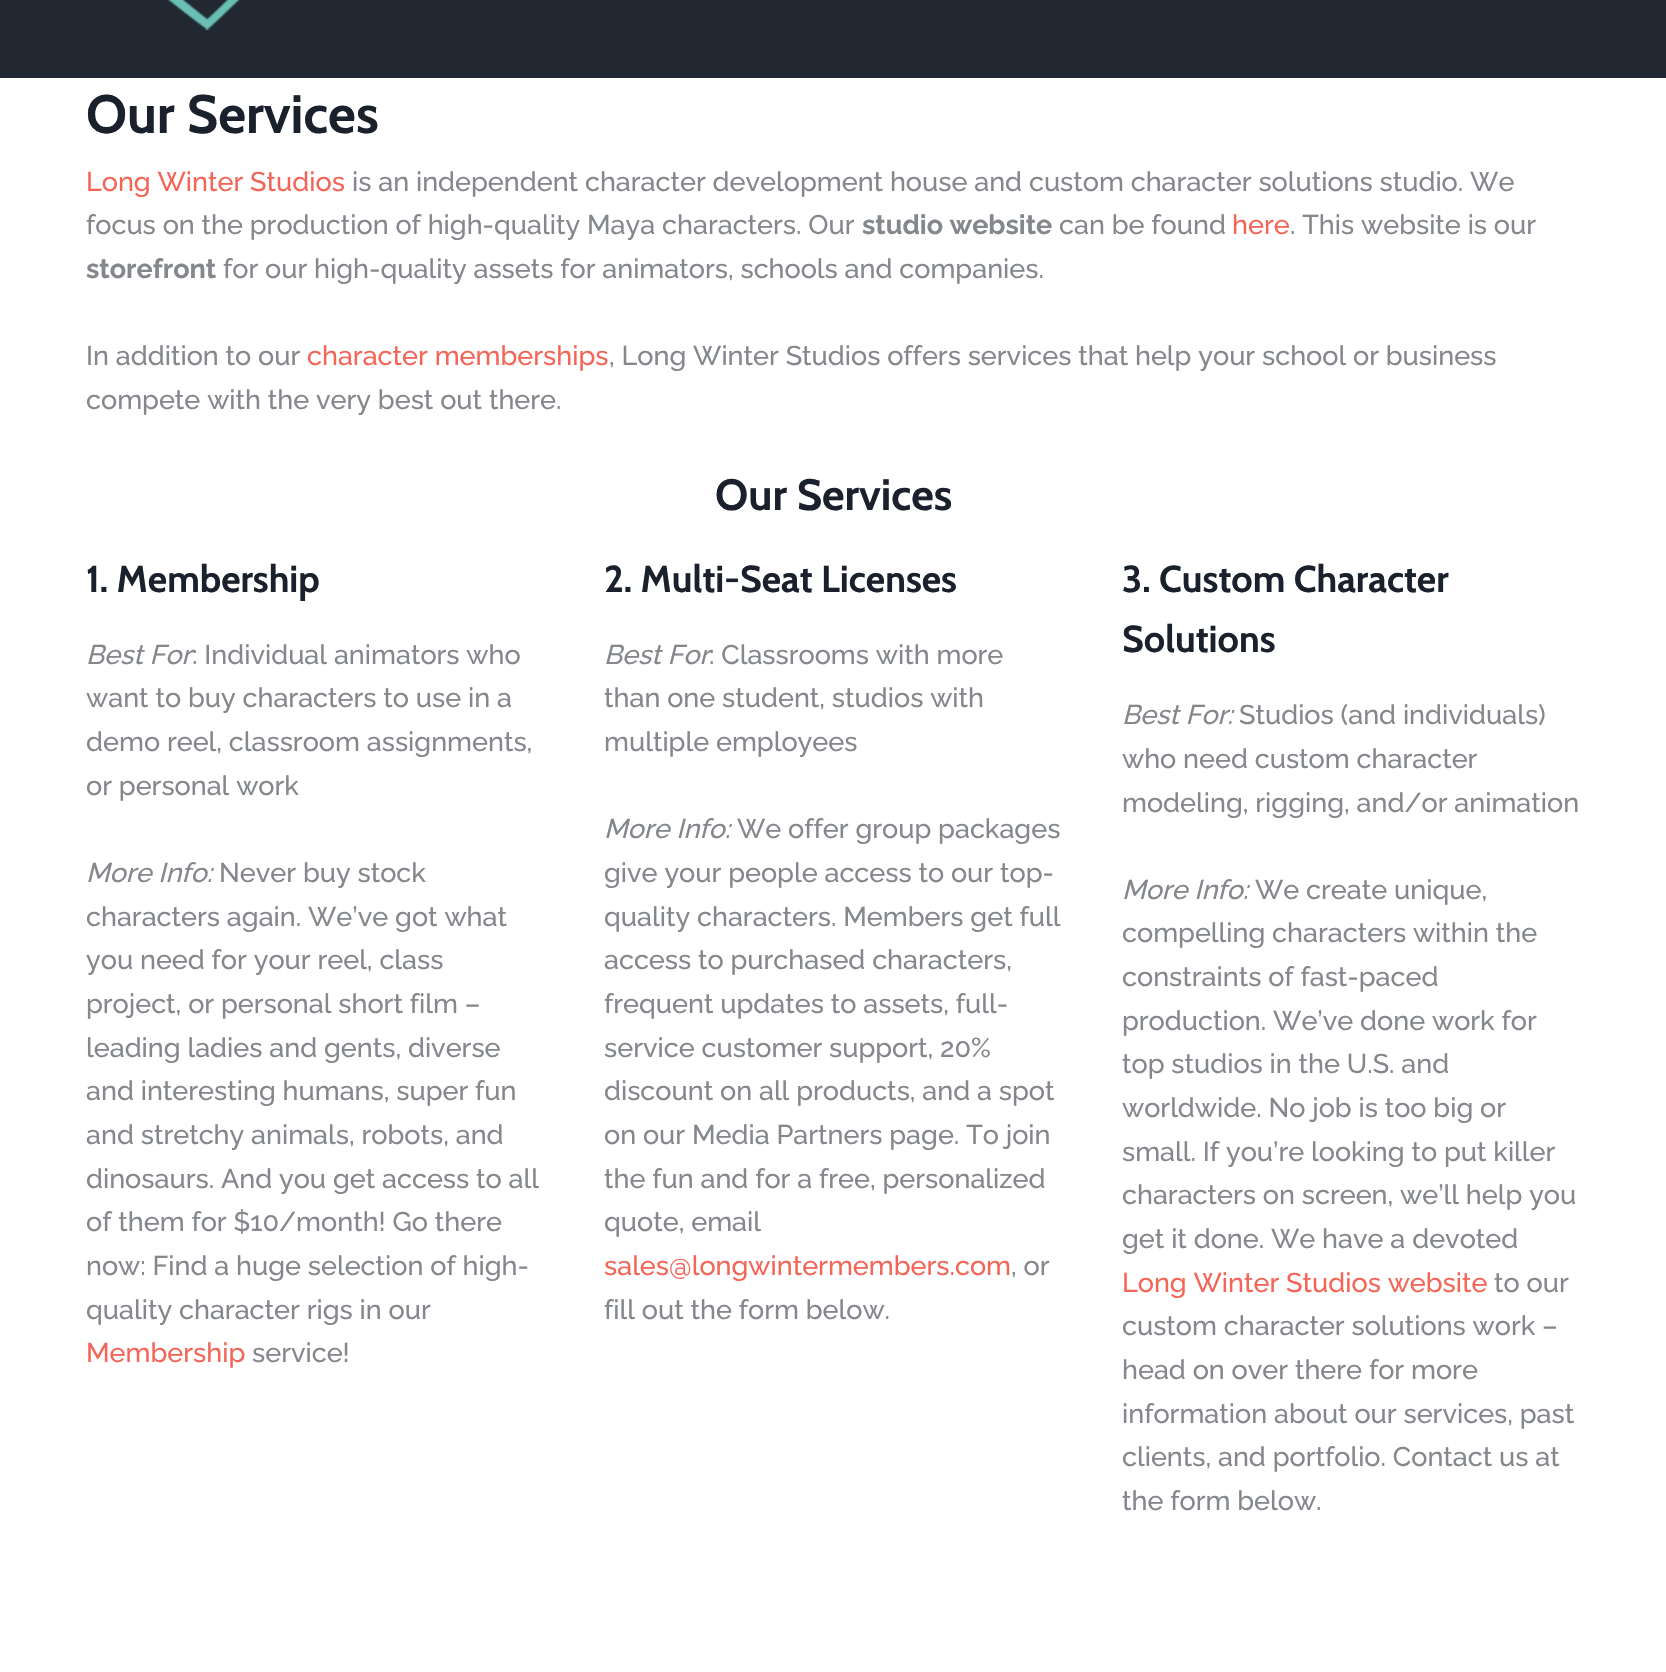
#include "include/core/SkBlurTypes.h"
#include "include/core/SkCanvas.h"
#include "include/core/SkData.h"
#include "include/core/SkFont.h"
#include "include/core/SkFontMgr.h"
#include "include/core/SkImage.h"
#include "include/core/SkMaskFilter.h"
#include "include/core/SkPaint.h"
#include "include/core/SkPathBuilder.h"
#include "include/core/SkTextBlob.h"
#include "include/effects/SkDashPathEffect.h"
#include "include/effects/SkGradientShader.h"
#include "include/utils/SkParsePath.h"

extern sk_sp<SkFontMgr> fontMgr;

static SkFont font(const char* family, int weight, float size, bool italic = false) {
    SkFontStyle style(weight, SkFontStyle::kNormal_Width,
        italic ? SkFontStyle::kItalic_Slant : SkFontStyle::kUpright_Slant);
    SkFont result(fontMgr->matchFamilyStyle(family, style), size);
    result.setSubpixel(true);
    return result;
}

static void drawLabel(SkCanvas* canvas, const char* s, float x, float y, const SkFont& font, SkColor color) {
    SkPaint ink(SkColor4f::FromColor(color));
    ink.setAntiAlias(true);
    canvas->drawString(s, x, y, font, ink);
}

static void fillRect(SkCanvas* canvas, float x, float y, float w, float h, SkColor color) {
    SkPaint ink(SkColor4f::FromColor(color));
    ink.setAntiAlias(true);
    canvas->drawRect(SkRect::MakeXYWH(x, y, w, h), ink);
}

static void drawPhoto(SkCanvas* canvas, const char* path, float x, float y, float w, float h) {
    auto image = SkImages::DeferredFromEncodedData(SkData::MakeFromFileName(path));
    canvas->drawImageRect(image, SkRect::MakeXYWH(x, y, w, h), SkSamplingOptions());
}

void draw(SkCanvas* canvas) {
    SkPaint paint;
    paint.setAntiAlias(true);
    canvas->clear(0xFFFFFFFF);
    fillRect(canvas, 0, 0, 1666, 78, 0xFF222832);
    drawPhoto(canvas, "assets/img1.png", 168, 0, 72, 30);
    SkFont font1 = font("Cabin", 700, 54);
    drawLabel(canvas, "Our Services", 86, 133, font1, 0xFF1A212C);
    SkFont font2 = font("Raleway", 500, 27);
    drawLabel(canvas, "Long Winter Studios", 86, 191, font2, 0xFFF36557);
    drawLabel(canvas, "is an independent character development house and custom character solutions studio. We", 352, 191, font2, 0xFF84878C);
    drawLabel(canvas, "focus on the production of high-quality Maya characters. Our", 86, 234, font2, 0xFF84878C);
    SkFont font3 = font("Raleway", 700, 27);
    drawLabel(canvas, "studio website", 862, 234, font3, 0xFF84878C);
    drawLabel(canvas, "can be found", 1059, 234, font2, 0xFF84878C);
    drawLabel(canvas, "here", 1232, 234, font2, 0xFFF36557);
    drawLabel(canvas, ". This website is our", 1290, 234, font2, 0xFF84878C);
    drawLabel(canvas, "storefront", 86, 278, font3, 0xFF84878C);
    drawLabel(canvas, "for our high-quality assets for animators, schools and companies.", 223, 278, font2, 0xFF84878C);
    drawLabel(canvas, "In addition to our", 86, 365, font2, 0xFF84878C);
    drawLabel(canvas, "character memberships", 307, 365, font2, 0xFFF36557);
    drawLabel(canvas, ", Long Winter Studios offers services that help your school or business", 609, 365, font2, 0xFF84878C);
    drawLabel(canvas, "compete with the very best out there.", 86, 409, font2, 0xFF84878C);
    SkFont font4 = font("Cabin", 700, 43.75f);
    drawLabel(canvas, "Our Services", 715, 510, font4, 0xFF1A212C);
    SkFont font5 = font("Cabin", 700, 37.5f);
    drawLabel(canvas, "1. Membership", 86, 592, font5, 0xFF1A212C);
    SkFont font6 = font("Raleway", 500, 27, true);
    drawLabel(canvas, "Best For", 86, 664, font6, 0xFF84878C);
    drawLabel(canvas, ": Individual animators who", 192, 664, font2, 0xFF84878C);
    drawLabel(canvas, "want to buy characters to use in a", 86, 707, font2, 0xFF84878C);
    drawLabel(canvas, "demo reel, classroom assignments,", 86, 751, font2, 0xFF84878C);
    drawLabel(canvas, "or personal work", 86, 795, font2, 0xFF84878C);
    drawLabel(canvas, "More Info:", 86, 882, font6, 0xFF84878C);
    drawLabel(canvas, "Never buy stock", 219, 882, font2, 0xFF84878C);
    drawLabel(canvas, "characters again. We’ve got what", 86, 926, font2, 0xFF84878C);
    drawLabel(canvas, "you need for your reel, class", 86, 969, font2, 0xFF84878C);
    drawLabel(canvas, "project, or personal short film –", 86, 1013, font2, 0xFF84878C);
    drawLabel(canvas, "leading ladies and gents, diverse", 86, 1057, font2, 0xFF84878C);
    drawLabel(canvas, "and interesting humans, super fun", 86, 1100, font2, 0xFF84878C);
    drawLabel(canvas, "and stretchy animals, robots, and", 86, 1144, font2, 0xFF84878C);
    drawLabel(canvas, "dinosaurs. And you get access to all", 86, 1188, font2, 0xFF84878C);
    drawLabel(canvas, "of them for $10/month! Go there", 86, 1231, font2, 0xFF84878C);
    drawLabel(canvas, "now: Find a huge selection of high-", 86, 1275, font2, 0xFF84878C);
    drawLabel(canvas, "quality character rigs in our", 86, 1319, font2, 0xFF84878C);
    drawLabel(canvas, "Membership", 86, 1362, font2, 0xFFF36557);
    drawLabel(canvas, "service!", 252, 1362, font2, 0xFF84878C);
    drawLabel(canvas, "2. Multi-Seat Licenses", 604, 592, font5, 0xFF1A212C);
    drawLabel(canvas, "Best For", 604, 664, font6, 0xFF84878C);
    drawLabel(canvas, ": Classrooms with more", 709, 664, font2, 0xFF84878C);
    drawLabel(canvas, "than one student, studios with", 604, 707, font2, 0xFF84878C);
    drawLabel(canvas, "multiple employees", 604, 751, font2, 0xFF84878C);
    drawLabel(canvas, "More Info:", 604, 838, font6, 0xFF84878C);
    drawLabel(canvas, "We offer group packages", 737, 838, font2, 0xFF84878C);
    drawLabel(canvas, "give your people access to our top-", 604, 882, font2, 0xFF84878C);
    drawLabel(canvas, "quality characters. Members get full", 604, 926, font2, 0xFF84878C);
    drawLabel(canvas, "access to purchased characters,", 604, 969, font2, 0xFF84878C);
    drawLabel(canvas, "frequent updates to assets, full-", 604, 1013, font2, 0xFF84878C);
    drawLabel(canvas, "service customer support, 20%", 604, 1057, font2, 0xFF84878C);
    drawLabel(canvas, "discount on all products, and a spot", 604, 1100, font2, 0xFF84878C);
    drawLabel(canvas, "on our Media Partners page. To join", 604, 1144, font2, 0xFF84878C);
    drawLabel(canvas, "the fun and for a free, personalized", 604, 1188, font2, 0xFF84878C);
    drawLabel(canvas, "quote, email", 604, 1231, font2, 0xFF84878C);
    drawLabel(canvas, "sales@longwintermembers.com", 604, 1275, font2, 0xFFF36557);
    drawLabel(canvas, ", or", 1011, 1275, font2, 0xFF84878C);
    drawLabel(canvas, "fill out the form below.", 604, 1319, font2, 0xFF84878C);
    drawLabel(canvas, "3. Custom Character", 1122, 592, font5, 0xFF1A212C);
    drawLabel(canvas, "Solutions", 1122, 652, font5, 0xFF1A212C);
    drawLabel(canvas, "Best For:", 1122, 724, font6, 0xFF84878C);
    drawLabel(canvas, "Studios (and individuals)", 1239, 724, font2, 0xFF84878C);
    drawLabel(canvas, "who need custom character", 1122, 768, font2, 0xFF84878C);
    drawLabel(canvas, "modeling, rigging, and/or animation", 1122, 812, font2, 0xFF84878C);
    drawLabel(canvas, "More Info:", 1122, 899, font6, 0xFF84878C);
    drawLabel(canvas, "We create unique,", 1255, 899, font2, 0xFF84878C);
    drawLabel(canvas, "compelling characters within the", 1122, 942, font2, 0xFF84878C);
    drawLabel(canvas, "constraints of fast-paced", 1122, 986, font2, 0xFF84878C);
    drawLabel(canvas, "production. We’ve done work for", 1122, 1030, font2, 0xFF84878C);
    drawLabel(canvas, "top studios in the U.S. and", 1122, 1073, font2, 0xFF84878C);
    drawLabel(canvas, "worldwide. No job is too big or", 1122, 1117, font2, 0xFF84878C);
    drawLabel(canvas, "small. If you’re looking to put killer", 1122, 1161, font2, 0xFF84878C);
    drawLabel(canvas, "characters on screen, we’ll help you", 1122, 1204, font2, 0xFF84878C);
    drawLabel(canvas, "get it done. We have a devoted", 1122, 1248, font2, 0xFF84878C);
    drawLabel(canvas, "Long Winter Studios website", 1122, 1292, font2, 0xFFF36557);
    drawLabel(canvas, "to our", 1494, 1292, font2, 0xFF84878C);
    drawLabel(canvas, "custom character solutions work –", 1122, 1335, font2, 0xFF84878C);
    drawLabel(canvas, "head on over there for more", 1122, 1379, font2, 0xFF84878C);
    drawLabel(canvas, "information about our services, past", 1122, 1423, font2, 0xFF84878C);
    drawLabel(canvas, "clients, and portfolio. Contact us at", 1122, 1466, font2, 0xFF84878C);
    drawLabel(canvas, "the form below.", 1122, 1510, font2, 0xFF84878C);
}
